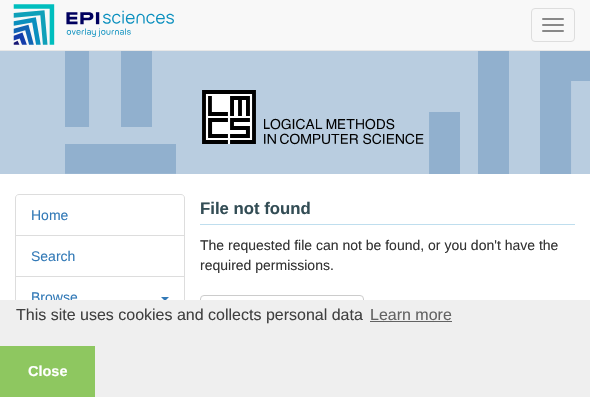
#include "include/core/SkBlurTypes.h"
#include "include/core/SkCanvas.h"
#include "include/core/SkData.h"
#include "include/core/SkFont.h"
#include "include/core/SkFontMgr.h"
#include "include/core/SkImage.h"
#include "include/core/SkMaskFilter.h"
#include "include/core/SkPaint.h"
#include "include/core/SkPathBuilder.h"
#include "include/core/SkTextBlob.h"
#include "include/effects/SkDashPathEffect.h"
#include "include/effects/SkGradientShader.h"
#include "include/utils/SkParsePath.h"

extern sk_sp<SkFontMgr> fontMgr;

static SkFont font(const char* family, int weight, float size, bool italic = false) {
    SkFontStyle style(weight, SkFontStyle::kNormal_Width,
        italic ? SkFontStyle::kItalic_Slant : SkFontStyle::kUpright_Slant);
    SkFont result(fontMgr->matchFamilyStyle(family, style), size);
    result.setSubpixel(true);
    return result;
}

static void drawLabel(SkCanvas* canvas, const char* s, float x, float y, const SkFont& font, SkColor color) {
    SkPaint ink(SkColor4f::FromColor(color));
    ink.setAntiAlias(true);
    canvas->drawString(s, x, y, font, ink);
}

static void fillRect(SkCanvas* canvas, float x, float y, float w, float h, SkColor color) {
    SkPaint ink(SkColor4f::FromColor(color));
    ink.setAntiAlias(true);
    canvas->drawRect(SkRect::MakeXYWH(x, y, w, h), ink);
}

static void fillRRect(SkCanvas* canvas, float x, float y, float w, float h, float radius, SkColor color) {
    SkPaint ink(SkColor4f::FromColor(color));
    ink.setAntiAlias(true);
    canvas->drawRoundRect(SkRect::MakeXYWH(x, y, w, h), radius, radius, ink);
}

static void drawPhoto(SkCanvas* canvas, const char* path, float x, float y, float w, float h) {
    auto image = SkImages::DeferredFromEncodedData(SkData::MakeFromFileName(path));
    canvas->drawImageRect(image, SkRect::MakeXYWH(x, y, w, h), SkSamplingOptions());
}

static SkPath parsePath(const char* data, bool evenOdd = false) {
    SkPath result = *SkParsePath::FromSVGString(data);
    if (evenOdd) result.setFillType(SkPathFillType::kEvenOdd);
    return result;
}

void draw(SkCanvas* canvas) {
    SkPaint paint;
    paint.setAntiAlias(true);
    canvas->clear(0xFFFFFFFF);
    fillRect(canvas, 0, 0, 590, 50, 0xFFF8F8F8);
    fillRect(canvas, 0, 50, 590, 1, 0xFFE7E7E7);
    drawPhoto(canvas, "assets/img1.png", 13, 4, 161, 41);
    paint.setStroke(true);
    paint.setStrokeWidth(1);
    paint.setColor(0xFFDDDDDD);
    canvas->drawRoundRect(SkRect::MakeXYWH(531.5f, 8.5f, 43, 33), 3.5f, 3.5f, paint);
    fillRRect(canvas, 542, 18, 22, 2, 1, 0xFF888888);
    fillRRect(canvas, 542, 24, 22, 2, 1, 0xFF888888);
    fillRRect(canvas, 542, 30, 22, 2, 1, 0xFF888888);
    fillRect(canvas, 0, 51, 429, 123, 0xFFB9CDE0);
    drawPhoto(canvas, "assets/img2.png", 65, 51, 359, 123);
    drawPhoto(canvas, "assets/img3.png", 429, 51, 161, 123);
    canvas->drawPath(parsePath("M19 194.5H181C183 194.5 184.5 196 184.5 198V235.5H15.5V198C15.5 196 17 194.5 19 194.5Z"), paint);
    SkFont font1 = font("Liberation Sans", 400, 14);
    drawLabel(canvas, "Home", 31, 220, font1, 0xFF337AB7);
    canvas->drawRect(SkRect::MakeXYWH(15.5f, 235.5f, 169, 41), paint);
    drawLabel(canvas, "Search", 31, 261, font1, 0xFF337AB7);
    canvas->drawRect(SkRect::MakeXYWH(15.5f, 276.5f, 169, 41), paint);
    drawLabel(canvas, "Browse", 31, 302, font1, 0xFF337AB7);
    paint.setStroke(false);
    paint.setColor(0xFF337AB7);
    canvas->drawPath(parsePath("M161 297H169L165 301Z"), paint);
    fillRect(canvas, 200, 224, 375, 1, 0xFFBFDEEE);
    SkFont font2 = font("Liberation Sans", 700, 16.75f);
    drawLabel(canvas, "File not found", 200, 214, font2, 0xFF334D55);
    drawLabel(canvas, "The requested file can not be found, or you don't have the", 200, 250, font1, 0xFF333333);
    drawLabel(canvas, "required permissions.", 200, 270, font1, 0xFF333333);
    paint.setStroke(true);
    paint.setColor(0xFFCCCCCC);
    canvas->drawRoundRect(SkRect::MakeXYWH(200.5f, 295.5f, 163, 33), 3.5f, 3.5f, paint);
    fillRect(canvas, 0, 300, 590, 97, 0xFFEFEFEF);
    SkFont font3 = font("Liberation Sans", 400, 16);
    drawLabel(canvas, "This site uses cookies and collects personal data", 16, 320, font3, 0xFF404040);
    drawLabel(canvas, "Learn more", 370, 320, font3, 0xFF636363);
    fillRect(canvas, 370, 321, 82, 1, 0xFF636363);
    fillRect(canvas, 0, 346, 95, 51, 0xFF8EC760);
    SkFont font4 = font("Liberation Sans", 700, 14.5f);
    drawLabel(canvas, "Close", 28, 376, font4, 0xFFFFFFFF);
}
